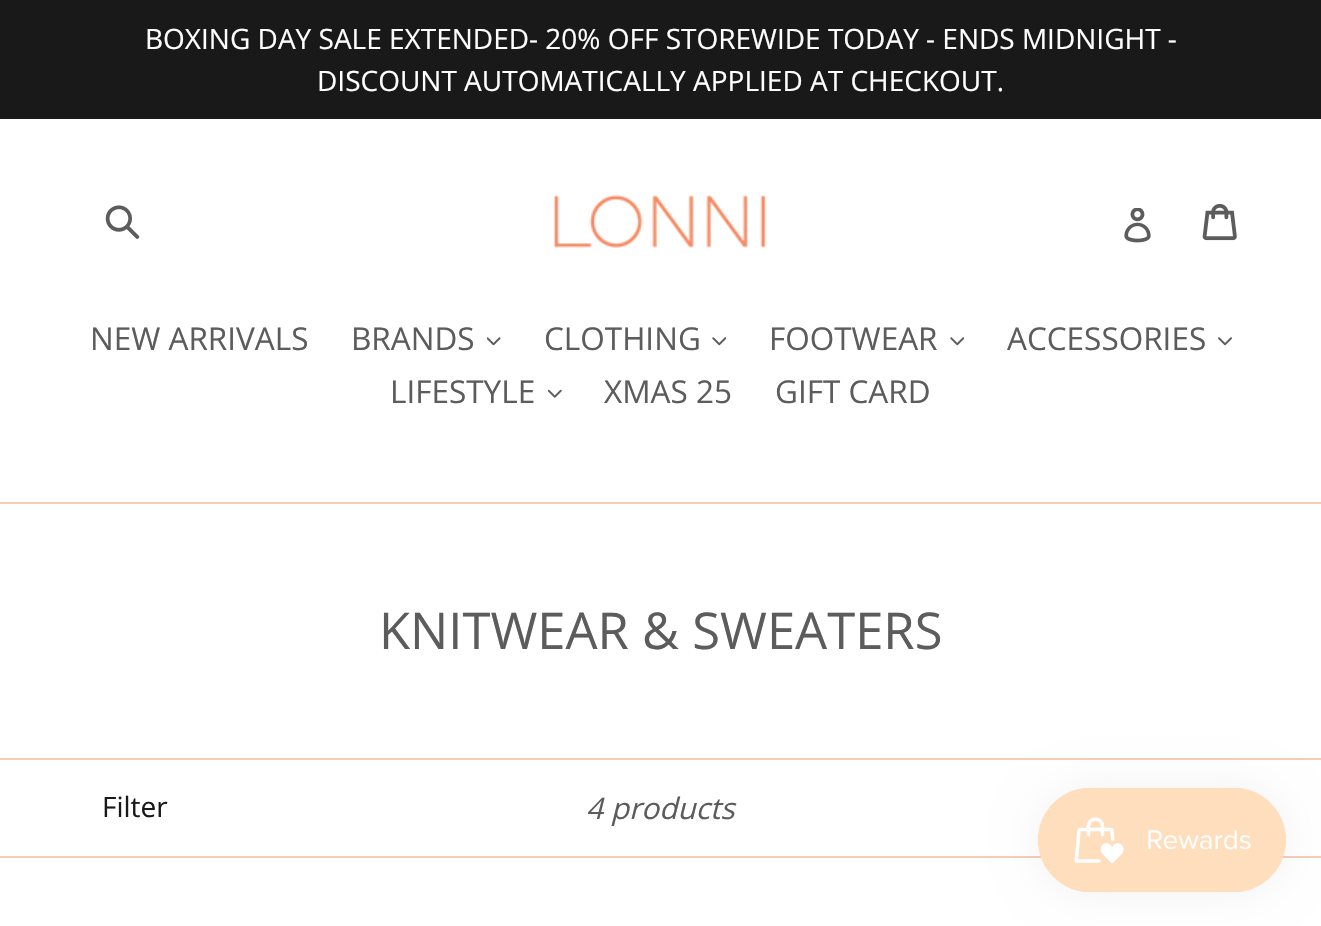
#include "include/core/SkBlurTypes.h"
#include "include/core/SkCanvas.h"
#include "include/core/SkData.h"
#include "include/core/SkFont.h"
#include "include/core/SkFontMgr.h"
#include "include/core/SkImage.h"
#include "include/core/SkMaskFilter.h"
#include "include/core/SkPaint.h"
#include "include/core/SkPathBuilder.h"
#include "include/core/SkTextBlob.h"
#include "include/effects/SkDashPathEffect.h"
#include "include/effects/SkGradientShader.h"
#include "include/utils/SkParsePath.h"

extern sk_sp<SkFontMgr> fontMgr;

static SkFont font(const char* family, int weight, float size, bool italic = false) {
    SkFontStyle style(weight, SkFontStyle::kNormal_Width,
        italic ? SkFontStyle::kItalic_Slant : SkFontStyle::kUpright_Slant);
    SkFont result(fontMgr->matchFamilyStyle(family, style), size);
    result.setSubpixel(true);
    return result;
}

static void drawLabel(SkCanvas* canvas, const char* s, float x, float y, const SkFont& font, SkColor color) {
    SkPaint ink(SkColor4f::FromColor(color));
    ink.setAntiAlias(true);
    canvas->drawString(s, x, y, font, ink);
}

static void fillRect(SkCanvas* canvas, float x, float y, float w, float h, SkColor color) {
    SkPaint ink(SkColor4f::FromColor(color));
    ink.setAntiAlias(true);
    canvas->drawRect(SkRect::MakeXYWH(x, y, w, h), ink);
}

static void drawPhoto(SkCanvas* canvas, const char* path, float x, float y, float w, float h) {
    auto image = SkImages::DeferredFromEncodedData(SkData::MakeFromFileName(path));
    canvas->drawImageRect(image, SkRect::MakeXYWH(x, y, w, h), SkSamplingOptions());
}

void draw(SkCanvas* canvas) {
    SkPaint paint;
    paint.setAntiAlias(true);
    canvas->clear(0xFFFFFFFF);
    fillRect(canvas, 0, 0, 1321, 119, 0xFF1A1919);
    SkFont font1 = font("Open Sans", 400, 28);
    drawLabel(canvas, "BOXING DAY SALE EXTENDED- 20% OFF STOREWIDE TODAY - ENDS MIDNIGHT -", 145, 49, font1, 0xFFFFFFFF);
    drawLabel(canvas, "DISCOUNT AUTOMATICALLY APPLIED AT CHECKOUT.", 317, 91, font1, 0xFFFFFFFF);
    drawPhoto(canvas, "assets/img1.png", 105, 205, 35, 34);
    drawPhoto(canvas, "assets/img2.png", 553, 194, 214, 55);
    drawPhoto(canvas, "assets/img3.png", 1124, 208, 27, 35);
    drawPhoto(canvas, "assets/img4.png", 1202, 203, 35, 38);
    fillRect(canvas, 0, 502, 1321, 2, 0xFFF6CCBA);
    SkFont font2 = font("Open Sans", 400, 31.5f);
    drawLabel(canvas, "NEW ARRIVALS", 90, 350, font2, 0xFF5D5C5C);
    drawLabel(canvas, "BRANDS", 351, 350, font2, 0xFF5D5C5C);
    drawPhoto(canvas, "assets/img5.png", 487, 337, 14, 9);
    drawLabel(canvas, "CLOTHING", 544, 350, font2, 0xFF5D5C5C);
    drawPhoto(canvas, "assets/img6.png", 712, 337, 14, 9);
    drawLabel(canvas, "FOOTWEAR", 769, 350, font2, 0xFF5D5C5C);
    drawPhoto(canvas, "assets/img6.png", 950, 337, 14, 9);
    drawLabel(canvas, "ACCESSORIES", 1007, 350, font2, 0xFF5D5C5C);
    drawPhoto(canvas, "assets/img7.png", 1218, 337, 14, 9);
    drawLabel(canvas, "LIFESTYLE", 390, 403, font2, 0xFF5D5C5C);
    drawPhoto(canvas, "assets/img8.png", 548, 389, 14, 9);
    drawLabel(canvas, "XMAS 25", 604, 403, font2, 0xFF5D5C5C);
    drawLabel(canvas, "GIFT CARD", 775, 403, font2, 0xFF5D5C5C);
    SkFont font3 = font("Open Sans", 400, 50.75f);
    drawLabel(canvas, "KNITWEAR & SWEATERS", 379, 649, font3, 0xFF5D5C5C);
    fillRect(canvas, 0, 758, 1321, 2, 0xFFF6CCBA);
    fillRect(canvas, 0, 856, 1321, 2, 0xFFF6CCBA);
    drawLabel(canvas, "Filter", 102, 817, font1, 0xFF1A1919);
    SkFont font4 = font("Open Sans", 400, 29.75f, true);
    drawLabel(canvas, "4 products", 586, 819, font4, 0xFF5D5C5C);
    paint.setColor(0x0D000000);
    paint.setMaskFilter(SkMaskFilter::MakeBlur(kNormal_SkBlurStyle, 22));
    canvas->drawRoundRect(SkRect::MakeXYWH(1038, 788, 248, 105), 52.5f, 52.5f, paint);
    paint.setMaskFilter(nullptr);
    drawPhoto(canvas, "assets/img9.png", 1038, 787, 248, 106);
}
